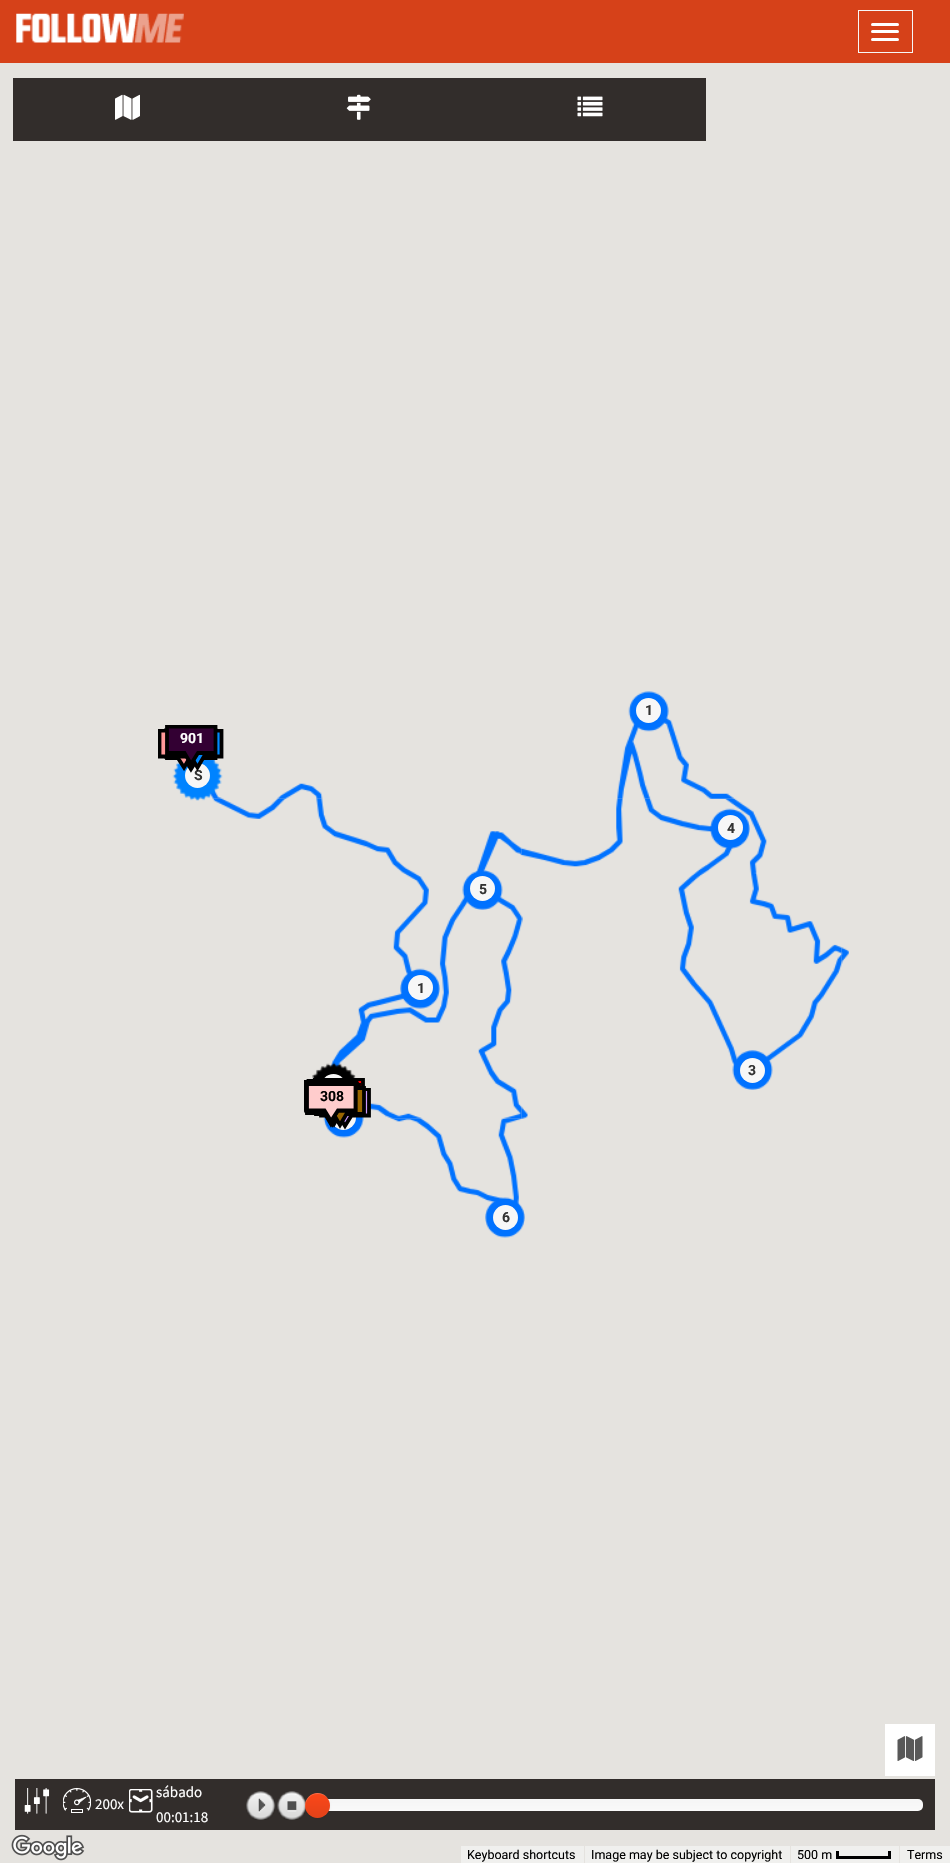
#include "include/core/SkBlurTypes.h"
#include "include/core/SkCanvas.h"
#include "include/core/SkData.h"
#include "include/core/SkFont.h"
#include "include/core/SkFontMgr.h"
#include "include/core/SkImage.h"
#include "include/core/SkMaskFilter.h"
#include "include/core/SkPaint.h"
#include "include/core/SkPathBuilder.h"
#include "include/core/SkTextBlob.h"
#include "include/effects/SkDashPathEffect.h"
#include "include/effects/SkGradientShader.h"
#include "include/utils/SkParsePath.h"

extern sk_sp<SkFontMgr> fontMgr;

static SkFont font(const char* family, int weight, float size, bool italic = false) {
    SkFontStyle style(weight, SkFontStyle::kNormal_Width,
        italic ? SkFontStyle::kItalic_Slant : SkFontStyle::kUpright_Slant);
    SkFont result(fontMgr->matchFamilyStyle(family, style), size);
    result.setSubpixel(true);
    return result;
}

static void drawLabel(SkCanvas* canvas, const char* s, float x, float y, const SkFont& font, SkColor color) {
    SkPaint ink(SkColor4f::FromColor(color));
    ink.setAntiAlias(true);
    canvas->drawString(s, x, y, font, ink);
}

static void fillRect(SkCanvas* canvas, float x, float y, float w, float h, SkColor color) {
    SkPaint ink(SkColor4f::FromColor(color));
    ink.setAntiAlias(true);
    canvas->drawRect(SkRect::MakeXYWH(x, y, w, h), ink);
}

static void fillRRect(SkCanvas* canvas, float x, float y, float w, float h, float radius, SkColor color) {
    SkPaint ink(SkColor4f::FromColor(color));
    ink.setAntiAlias(true);
    canvas->drawRoundRect(SkRect::MakeXYWH(x, y, w, h), radius, radius, ink);
}

static void drawPhoto(SkCanvas* canvas, const char* path, float x, float y, float w, float h) {
    auto image = SkImages::DeferredFromEncodedData(SkData::MakeFromFileName(path));
    canvas->drawImageRect(image, SkRect::MakeXYWH(x, y, w, h), SkSamplingOptions());
}

static SkPath parsePath(const char* data, bool evenOdd = false) {
    SkPath result = *SkParsePath::FromSVGString(data);
    if (evenOdd) result.setFillType(SkPathFillType::kEvenOdd);
    return result;
}

void draw(SkCanvas* canvas) {
    SkPaint paint;
    paint.setAntiAlias(true);
    canvas->clear(0xFFE5E3DF);
    fillRect(canvas, 0, 0, 950, 63, 0xFFD64119);
    drawPhoto(canvas, "assets/img1.png", 16, 13, 168, 30);
    paint.setStroke(true);
    paint.setStrokeWidth(1);
    paint.setColor(0xFFF7F7F7);
    canvas->drawRect(SkRect::MakeXYWH(858.5f, 10.5f, 54, 42), paint);
    fillRRect(canvas, 871, 23, 28, 3, 1.5f, 0xFFFFFFFF);
    fillRRect(canvas, 871, 30, 28, 3, 1.5f, 0xFFFFFFFF);
    fillRRect(canvas, 871, 38, 28, 3, 1.5f, 0xFFFFFFFF);
    fillRect(canvas, 13, 78, 693, 63, 0xFF322D2B);
    drawPhoto(canvas, "assets/img2.png", 115, 94, 25, 26);
    drawPhoto(canvas, "assets/img3.png", 346, 94, 25, 26);
    drawPhoto(canvas, "assets/img4.png", 577, 96, 26, 21);
    fillRect(canvas, 15, 1779, 920, 51, 0xFF322D2B);
    drawPhoto(canvas, "assets/img5.png", 24, 1788, 26, 26);
    drawPhoto(canvas, "assets/img6.png", 63, 1787, 28, 26);
    SkFont font1 = font("Source Sans Pro", 400, 15);
    drawLabel(canvas, "200x", 95, 1809, font1, 0xFFFFFFFF);
    drawPhoto(canvas, "assets/img7.png", 129, 1789, 24, 24);
    drawLabel(canvas, "sábado", 156, 1797, font1, 0xFFFFFFFF);
    drawLabel(canvas, "00:01:18", 156, 1822, font1, 0xFFFFFFFF);
    drawPhoto(canvas, "assets/img8.png", 246, 1791, 30, 29);
    drawPhoto(canvas, "assets/img9.png", 277, 1791, 30, 29);
    paint.setStroke(false);
    {
        const SkColor colors[] = {0xFFF5F5F5, 0xFFF9F9F9};
        const float stops[] = {0, 1};
        const SkPoint ends[] = {{620, 1799}, {620, 1811}};
        paint.setShader(SkGradientShader::MakeLinear(ends, colors, stops, 2, SkTileMode::kClamp));
        paint.setAlpha(255);
    }
    canvas->drawRoundRect(SkRect::MakeXYWH(318, 1799, 605, 12), 5, 5, paint);
    paint.setShader(nullptr);
    paint.setColor(0x0D000000);
    paint.setMaskFilter(SkMaskFilter::MakeBlur(kNormal_SkBlurStyle, 1));
    canvas->drawRoundRect(SkRect::MakeXYWH(305, 1794, 25, 25), 12.5f, 12.5f, paint);
    paint.setMaskFilter(nullptr);
    {
        const SkColor colors[] = {0xFFFB4719, 0xFFE24219};
        const float stops[] = {0, 1};
        const SkPoint ends[] = {{318, 1793}, {318, 1818}};
        paint.setShader(SkGradientShader::MakeLinear(ends, colors, stops, 2, SkTileMode::kClamp));
        paint.setAlpha(255);
    }
    canvas->drawCircle(317.5f, 1805.5f, 12.5f, paint);
    paint.setShader(nullptr);
    paint.setColor(0x33FFFFFF);
    canvas->drawPath(parsePath("M318 1794C326 1794 330 1800 330 1806C330 1803.5 329.5 1800.5 328 1798.5C320 1786.5 302 1795.5 305.5 1809C304.5 1802 308.5 1794 318 1794Z"), paint);
    drawPhoto(canvas, "assets/img22.png", 521, 798, 321, 321);
    drawPhoto(canvas, "assets/img20.png", 617, 717, 117, 82);
    drawPhoto(canvas, "assets/img10.png", 628, 691, 41, 41);
    drawPhoto(canvas, "assets/img21.png", 212, 798, 310, 321);
    drawPhoto(canvas, "assets/img19.png", 209, 783, 114, 16);
    drawPhoto(canvas, "assets/img11.png", 172, 759, 51, 42);
    drawPhoto(canvas, "assets/img12.png", 710, 808, 40, 41);
    drawPhoto(canvas, "assets/img13.png", 462, 870, 41, 40);
    drawPhoto(canvas, "assets/img14.png", 400, 968, 40, 41);
    drawPhoto(canvas, "assets/img15.png", 312, 1062, 44, 17);
    drawPhoto(canvas, "assets/img16.png", 732, 1050, 41, 40);
    drawPhoto(canvas, "assets/img17.png", 323, 1117, 41, 21);
    drawPhoto(canvas, "assets/img24.png", 392, 1118, 130, 88);
    drawPhoto(canvas, "assets/img18.png", 485, 1197, 40, 41);
    drawPhoto(canvas, "assets/img23.png", 841, 947, 8, 17);
    paint.setColor(0xFFF7F7F7);
    canvas->drawCircle(648.5f, 710.5f, 12.5f, paint);
    SkFont font2 = font("Roboto", 700, 14);
    drawLabel(canvas, "1", 645, 715, font2, 0xFF333333);
    canvas->drawCircle(197.5f, 775.5f, 12.5f, paint);
    drawLabel(canvas, "S", 194, 780, font2, 0xFF333333);
    canvas->drawCircle(730.5f, 827.5f, 12.5f, paint);
    drawLabel(canvas, "4", 727, 833, font2, 0xFF333333);
    canvas->drawCircle(482.5f, 888.5f, 12.5f, paint);
    drawLabel(canvas, "5", 479, 894, font2, 0xFF333333);
    canvas->drawCircle(420.5f, 987.5f, 12.5f, paint);
    drawLabel(canvas, "1", 417, 993, font2, 0xFF333333);
    canvas->drawCircle(752.5f, 1070.5f, 12.5f, paint);
    drawLabel(canvas, "3", 748, 1075, font2, 0xFF333333);
    canvas->drawCircle(333.5f, 1086.5f, 12.5f, paint);
    canvas->drawCircle(343.5f, 1117.5f, 12.5f, paint);
    canvas->drawCircle(505.5f, 1217.5f, 12.5f, paint);
    drawLabel(canvas, "6", 502, 1222, font2, 0xFF333333);
    paint.setStroke(true);
    paint.setStrokeWidth(3.8f);
    paint.setColor(0xFF000000);
    canvas->drawPath(parsePath("M167 731.5H215.5V758H198L191 769L184.5 758H167ZM167 730.5H215.5V756.5H198L191 767.5L184.5 756.5H167ZM166 730.5H214V756.5H196.5L190 767.5L183.5 756.5H166Z"), paint);
    paint.setStroke(false);
    paint.setColor(0xFFFF9999);
    canvas->drawPath(parsePath("M160 730H208V757H190L184 768L177 757H160Z"), paint);
    canvas->save();
    canvas->clipRect(SkRect::MakeXYWH(158, 729, 52, 42));
    paint.setStroke(true);
    paint.setColor(0xFF000000);
    canvas->drawPath(parsePath("M159.5 730.5H208V756.5H190.5L184 767.5L177 756.5H159.5Z"), paint);
    canvas->restore();
    paint.setStroke(false);
    paint.setColor(0xFF0088FF);
    canvas->drawPath(parsePath("M173 730H222V757H204L198 768L191 757H173Z"), paint);
    canvas->save();
    canvas->clipRect(SkRect::MakeXYWH(171, 729, 53, 42));
    paint.setStroke(true);
    paint.setColor(0xFF000000);
    canvas->drawPath(parsePath("M173.5 730.5H221.5V756.5H204L197.5 767.5L191 756.5H173.5Z"), paint);
    canvas->restore();
    paint.setStroke(false);
    paint.setColor(0xFF330033);
    canvas->drawPath(parsePath("M167 727H215V753H198L191 764L185 753H167Z"), paint);
    canvas->save();
    canvas->clipRect(SkRect::MakeXYWH(165, 725, 53, 43));
    paint.setStroke(true);
    paint.setColor(0xFF000000);
    canvas->drawPath(parsePath("M167 726.5H215.5V753H198L191 764L184.5 753H167Z"), paint);
    canvas->restore();
    drawLabel(canvas, "901", 180, 743, font2, 0xFFFFFFFF);
    canvas->drawPath(parsePath("M307 1085.5H355.5V1111.5H338L331 1122.5L324.5 1111.5H307ZM309.5 1086.5H358V1113H340.5L334 1124L327 1113H309.5ZM308.5 1085.5H356.5V1111.5H339L332.5 1122.5L326 1111.5H308.5Z"), paint);
    paint.setStroke(false);
    paint.setColor(0xFFFF0000);
    canvas->drawPath(parsePath("M315 1079H363V1105H345L339 1116L332 1105H315Z"), paint);
    canvas->save();
    canvas->clipRect(SkRect::MakeXYWH(313, 1078, 52, 42));
    paint.setStroke(true);
    paint.setColor(0xFF000000);
    canvas->drawPath(parsePath("M314.5 1079H363V1105.5H345.5L339 1116L332 1105.5H314.5Z"), paint);
    canvas->restore();
    canvas->drawPath(parsePath("M307 1084H355.5V1110.5H338L331 1121L324.5 1110.5H307Z"), paint);
    canvas->save();
    canvas->clipRect(SkRect::MakeXYWH(304, 1080, 52, 43));
    canvas->drawPath(parsePath("M306 1081.5H354V1108H336.5L330 1119L323.5 1108H306Z"), paint);
    canvas->restore();
    canvas->drawPath(parsePath("M307 1084H355.5V1110.5H338L331 1121L324.5 1110.5H307Z"), paint);
    canvas->save();
    canvas->clipRect(SkRect::MakeXYWH(304, 1080, 52, 43));
    canvas->drawPath(parsePath("M306 1081.5H354V1108H336.5L330 1119L323.5 1108H306Z"), paint);
    canvas->restore();
    canvas->drawPath(parsePath("M306 1083H354V1109H336.5L330 1120L323.5 1109H306ZM306 1083H354V1109H336.5L330 1120L323.5 1109H306ZM307 1084H355.5V1110.5H338L331 1121L324.5 1110.5H307ZM308.5 1085.5H356.5V1111.5H339L332.5 1122.5L326 1111.5H308.5Z"), paint);
    canvas->drawPath(parsePath("M307 1084H355.5V1110.5H338L331 1121L324.5 1110.5H307ZM307 1084H355.5V1110.5H338L331 1121L324.5 1110.5H307Z"), paint);
    canvas->save();
    canvas->clipRect(SkRect::MakeXYWH(304, 1080, 52, 43));
    canvas->drawPath(parsePath("M306 1081.5H354V1108H336.5L330 1119L323.5 1108H306Z"), paint);
    canvas->restore();
    canvas->drawPath(parsePath("M308.5 1085.5H356.5V1111.5H339L332.5 1122.5L326 1111.5H308.5ZM308.5 1086.5H356.5V1113H339L332.5 1124L326 1113H308.5ZM307 1085.5H355.5V1111.5H338L331 1122.5L324.5 1111.5H307Z"), paint);
    canvas->save();
    canvas->clipRect(SkRect::MakeXYWH(304, 1080, 52, 43));
    canvas->drawPath(parsePath("M306 1081.5H354V1108H336.5L330 1119L323.5 1108H306Z"), paint);
    canvas->restore();
    canvas->drawPath(parsePath("M308.5 1084H356.5V1110.5H339L332.5 1121L326 1110.5H308.5Z"), paint);
    canvas->save();
    canvas->clipRect(SkRect::MakeXYWH(309, 1083, 52, 42));
    canvas->drawPath(parsePath("M311 1084H359V1110.5H341.5L335 1121L328.5 1110.5H311Z"), paint);
    canvas->restore();
    canvas->drawPath(parsePath("M308.5 1084H356.5V1110.5H339L332.5 1121L326 1110.5H308.5ZM308.5 1085.5H356.5V1111.5H339L332.5 1122.5L326 1111.5H308.5Z"), paint);
    canvas->save();
    canvas->clipRect(SkRect::MakeXYWH(304, 1080, 52, 43));
    canvas->drawPath(parsePath("M306 1081.5H354V1108H336.5L330 1119L323.5 1108H306Z"), paint);
    canvas->restore();
    canvas->drawPath(parsePath("M308.5 1085.5H356.5V1111.5H339L332.5 1122.5L326 1111.5H308.5ZM307 1085.5H355.5V1111.5H338L331 1122.5L324.5 1111.5H307ZM307 1086.5H355.5V1113H338L331 1124L324.5 1113H307Z"), paint);
    canvas->save();
    canvas->clipRect(SkRect::MakeXYWH(306, 1079, 53, 42));
    canvas->drawPath(parsePath("M308.5 1080.5H356.5V1106.5H339L332.5 1117.5L326 1106.5H308.5Z"), paint);
    canvas->restore();
    canvas->drawPath(parsePath("M306 1083H354V1109H336.5L330 1120L323.5 1109H306ZM308.5 1084H356.5V1110.5H339L332.5 1121L326 1110.5H308.5ZM308.5 1084H356.5V1110.5H339L332.5 1121L326 1110.5H308.5ZM308.5 1084H356.5V1110.5H339L332.5 1121L326 1110.5H308.5ZM306 1084H354V1110.5H336.5L330 1121L323.5 1110.5H306Z"), paint);
    paint.setStroke(false);
    paint.setColor(0xFFCC99FF);
    canvas->drawPath(parsePath("M321 1089H369V1115H352L345 1126L338 1115H321Z"), paint);
    canvas->save();
    canvas->clipRect(SkRect::MakeXYWH(319, 1088, 52, 42));
    paint.setStroke(true);
    paint.setColor(0xFF000000);
    canvas->drawPath(parsePath("M321 1089H369V1115.5H351.5L345 1126L338.5 1115.5H321Z"), paint);
    canvas->restore();
    canvas->save();
    canvas->clipRect(SkRect::MakeXYWH(305, 1080, 53, 43));
    canvas->drawPath(parsePath("M307 1081.5H355.5V1108H338L331 1119L324.5 1108H307Z"), paint);
    canvas->restore();
    paint.setStroke(false);
    paint.setColor(0xFF996600);
    canvas->drawPath(parsePath("M316 1088H364V1114H347L340 1125L333 1114H316Z"), paint);
    paint.setStroke(true);
    paint.setColor(0xFF000000);
    canvas->drawPath(parsePath("M316 1088H364V1114H346.5L340 1125L333.5 1114H316ZM307 1083H355.5V1109H338L331 1120L324.5 1109H307ZM307 1084H355.5V1110.5H338L331 1121L324.5 1110.5H307ZM307 1083H355.5V1109H338L331 1120L324.5 1109H307Z"), paint);
    paint.setStroke(false);
    paint.setColor(0xFFFFCCCC);
    canvas->drawPath(parsePath("M307 1084H355V1110H338L331 1121L325 1110H307Z"), paint);
    canvas->save();
    canvas->clipRect(SkRect::MakeXYWH(305, 1083, 53, 42));
    paint.setStroke(true);
    paint.setColor(0xFF000000);
    canvas->drawPath(parsePath("M307 1084H355.5V1110.5H338L331 1121L324.5 1110.5H307Z"), paint);
    canvas->restore();
    drawLabel(canvas, "308", 320, 1101, font2, 0xFF000000);
    drawPhoto(canvas, "assets/img25.png", 11, 1834, 74, 27);
    fillRect(canvas, 461, 1846, 123, 17, 0xFFF0F0EE);
    SkFont font3 = font("Roboto", 400, 12.5f);
    drawLabel(canvas, "Keyboard shortcuts", 467, 1859, font3, 0xFF000000);
    fillRect(canvas, 585, 1846, 205, 17, 0xFFF0F0EE);
    drawLabel(canvas, "Image may be subject to copyright", 591, 1859, font3, 0xFF000000);
    fillRect(canvas, 791, 1846, 108, 17, 0xFFF0F0EE);
    drawLabel(canvas, "500 m", 797, 1859, font3, 0xFF000000);
    fillRect(canvas, 836, 1856, 54, 3, 0xFF000000);
    fillRect(canvas, 836, 1851, 3, 8, 0xFF000000);
    fillRect(canvas, 888, 1851, 3, 8, 0xFF000000);
    fillRect(canvas, 900, 1846, 50, 17, 0xFFF0F0EE);
    drawLabel(canvas, "Terms", 907, 1859, font3, 0xFF000000);
    fillRect(canvas, 885, 1724, 50, 52, 0xFFFFFFFF);
    drawPhoto(canvas, "assets/img26.png", 897, 1736, 26, 25);
}
